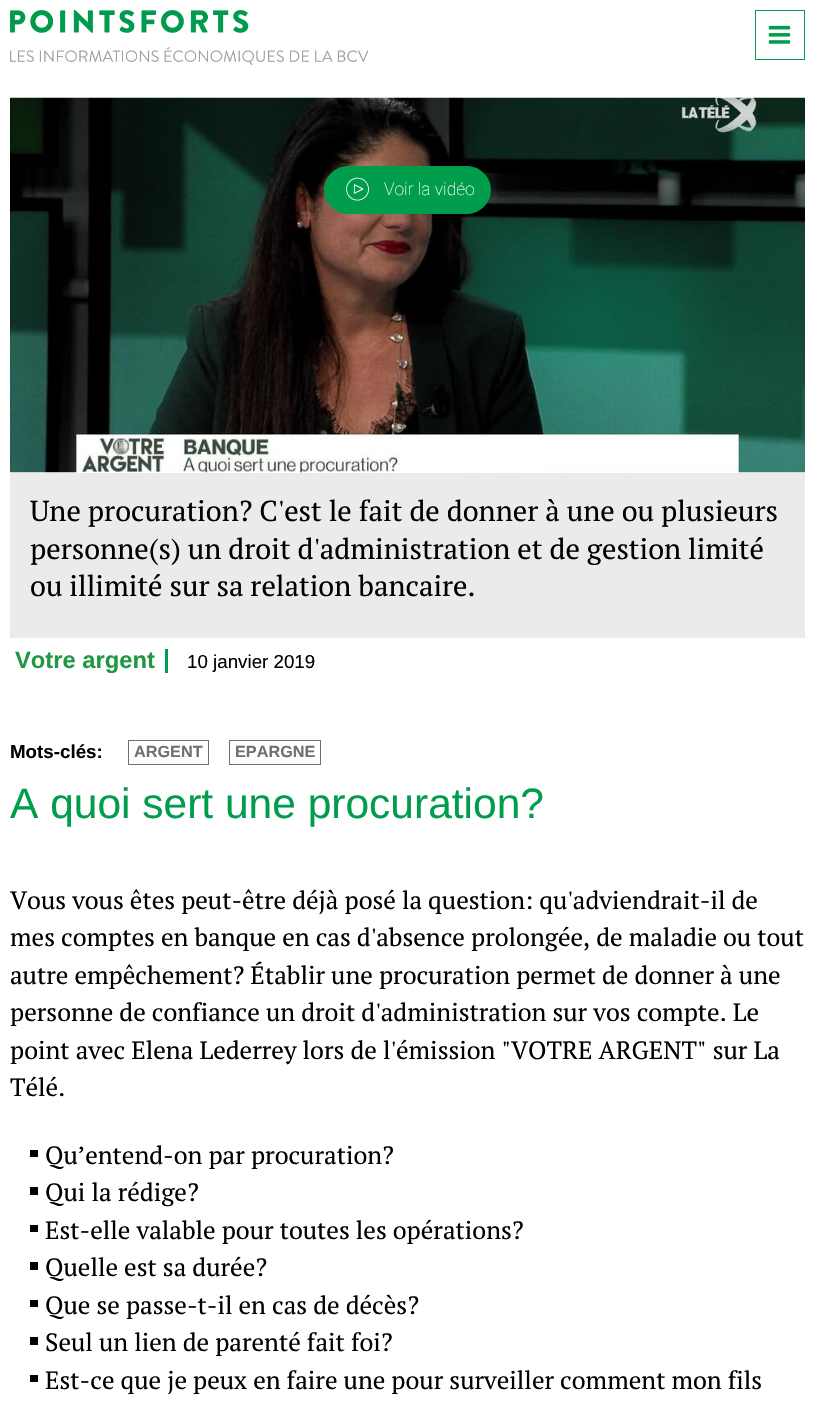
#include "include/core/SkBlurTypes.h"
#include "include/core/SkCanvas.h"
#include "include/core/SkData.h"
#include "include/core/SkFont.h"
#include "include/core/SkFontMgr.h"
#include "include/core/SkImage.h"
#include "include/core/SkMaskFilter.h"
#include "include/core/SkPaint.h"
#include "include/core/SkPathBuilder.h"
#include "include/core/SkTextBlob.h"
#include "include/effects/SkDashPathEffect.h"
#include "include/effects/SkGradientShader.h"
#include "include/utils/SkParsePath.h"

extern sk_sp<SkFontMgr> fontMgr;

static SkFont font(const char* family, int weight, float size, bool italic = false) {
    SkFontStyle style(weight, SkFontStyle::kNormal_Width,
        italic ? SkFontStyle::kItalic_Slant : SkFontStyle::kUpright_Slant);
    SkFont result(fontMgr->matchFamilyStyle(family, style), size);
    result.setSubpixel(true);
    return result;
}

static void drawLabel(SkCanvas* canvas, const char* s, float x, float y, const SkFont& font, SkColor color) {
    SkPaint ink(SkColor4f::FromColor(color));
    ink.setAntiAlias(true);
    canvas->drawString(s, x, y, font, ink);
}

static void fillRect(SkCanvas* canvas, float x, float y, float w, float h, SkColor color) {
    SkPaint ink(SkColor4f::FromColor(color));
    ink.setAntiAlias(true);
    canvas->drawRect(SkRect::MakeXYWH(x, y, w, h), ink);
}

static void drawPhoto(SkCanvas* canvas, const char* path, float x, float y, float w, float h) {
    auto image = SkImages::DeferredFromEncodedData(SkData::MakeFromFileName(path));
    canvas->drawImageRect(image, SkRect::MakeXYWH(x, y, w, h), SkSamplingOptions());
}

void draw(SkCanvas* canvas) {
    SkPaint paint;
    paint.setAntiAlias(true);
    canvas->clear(0xFFFFFFFF);
    drawPhoto(canvas, "assets/img1.png", 10, 10, 359, 55);
    paint.setStroke(true);
    paint.setStrokeWidth(1);
    paint.setColor(0xFF009D4D);
    canvas->drawRect(SkRect::MakeXYWH(755.5f, 10.5f, 49, 49), paint);
    drawPhoto(canvas, "assets/img2.png", 768, 25, 23, 19);
    drawPhoto(canvas, "assets/img3.png", 10, 97, 795, 376);
    paint.setStroke(false);
    canvas->drawRoundRect(SkRect::MakeXYWH(324.5f, 166.5f, 166, 47), 23.5f, 23.5f, paint);
    paint.setStroke(true);
    canvas->drawRoundRect(SkRect::MakeXYWH(324.5f, 166.5f, 166, 47), 23.5f, 23.5f, paint);
    drawPhoto(canvas, "assets/img4.png", 346, 177, 23, 24);
    SkFont font1 = font("Roboto", 100, 17.5f);
    drawLabel(canvas, "Voir la vidéo", 384, 195, font1, 0xFFFFFFFF);
    fillRect(canvas, 10, 473, 795, 165, 0xFFEBEBEB);
    SkFont font2 = font("PT Serif", 400, 28.75f);
    drawLabel(canvas, "Une procuration? C'est le fait de donner à une ou plusieurs", 30, 521, font2, 0xFF000000);
    drawLabel(canvas, "personne(s) un droit d'administration et de gestion limité", 30, 559, font2, 0xFF000000);
    drawLabel(canvas, "ou illimité sur sa relation bancaire.", 30, 596, font2, 0xFF000000);
    fillRect(canvas, 165, 649, 3, 24, 0xFF009D4D);
    SkFont font3 = font("Arimo", 700, 23.75f);
    drawLabel(canvas, "Votre argent", 15, 668, font3, 0xFF1F9743);
    SkFont font4 = font("Arimo", 400, 18.75f);
    drawLabel(canvas, "10 janvier 2019", 187, 668, font4, 0xFF000000);
    SkFont font5 = font("Arimo", 700, 18.75f);
    drawLabel(canvas, "Mots-clés:", 10, 758, font5, 0xFF000000);
    paint.setColor(0xFF707070);
    canvas->drawRect(SkRect::MakeXYWH(128.5f, 740.5f, 80, 24), paint);
    SkFont font6 = font("Arimo", 700, 16.25f);
    drawLabel(canvas, "ARGENT", 134, 757, font6, 0xFF707070);
    canvas->drawRect(SkRect::MakeXYWH(229.5f, 740.5f, 91, 24), paint);
    drawLabel(canvas, "EPARGNE", 235, 757, font6, 0xFF707070);
    SkFont font7 = font("Liberation Sans", 400, 42.5f);
    drawLabel(canvas, "A quoi sert une procuration?", 10, 818, font7, 0xFF009D4D);
    SkFont font8 = font("PT Serif", 400, 25);
    drawLabel(canvas, "Vous vous êtes peut-être déjà posé la question: qu'adviendrait-il de", 10, 909, font8, 0xFF000000);
    drawLabel(canvas, "mes comptes en banque en cas d'absence prolongée, de maladie ou tout", 10, 946, font8, 0xFF000000);
    drawLabel(canvas, "autre empêchement? Établir une procuration permet de donner à une", 10, 984, font8, 0xFF000000);
    drawLabel(canvas, "personne de confiance un droit d'administration sur vos compte. Le", 10, 1021, font8, 0xFF000000);
    drawLabel(canvas, "point avec Elena Lederrey lors de l'émission \"VOTRE ARGENT\" sur La", 10, 1059, font8, 0xFF000000);
    drawLabel(canvas, "Télé.", 10, 1096, font8, 0xFF000000);
    fillRect(canvas, 30, 1150, 8, 7, 0xFF000000);
    drawLabel(canvas, "Qu’entend-on par procuration?", 45, 1164, font8, 0xFF000000);
    fillRect(canvas, 30, 1187, 8, 8, 0xFF000000);
    drawLabel(canvas, "Qui la rédige?", 45, 1201, font8, 0xFF000000);
    fillRect(canvas, 30, 1225, 8, 7, 0xFF000000);
    drawLabel(canvas, "Est-elle valable pour toutes les opérations?", 45, 1239, font8, 0xFF000000);
    fillRect(canvas, 30, 1262, 8, 8, 0xFF000000);
    drawLabel(canvas, "Quelle est sa durée?", 45, 1276, font8, 0xFF000000);
    fillRect(canvas, 30, 1300, 8, 7, 0xFF000000);
    drawLabel(canvas, "Que se passe-t-il en cas de décès?", 45, 1314, font8, 0xFF000000);
    fillRect(canvas, 30, 1337, 8, 8, 0xFF000000);
    drawLabel(canvas, "Seul un lien de parenté fait foi?", 45, 1351, font8, 0xFF000000);
    fillRect(canvas, 30, 1375, 8, 7, 0xFF000000);
    drawLabel(canvas, "Est-ce que je peux en faire une pour surveiller comment mon fils", 45, 1389, font8, 0xFF000000);
}
